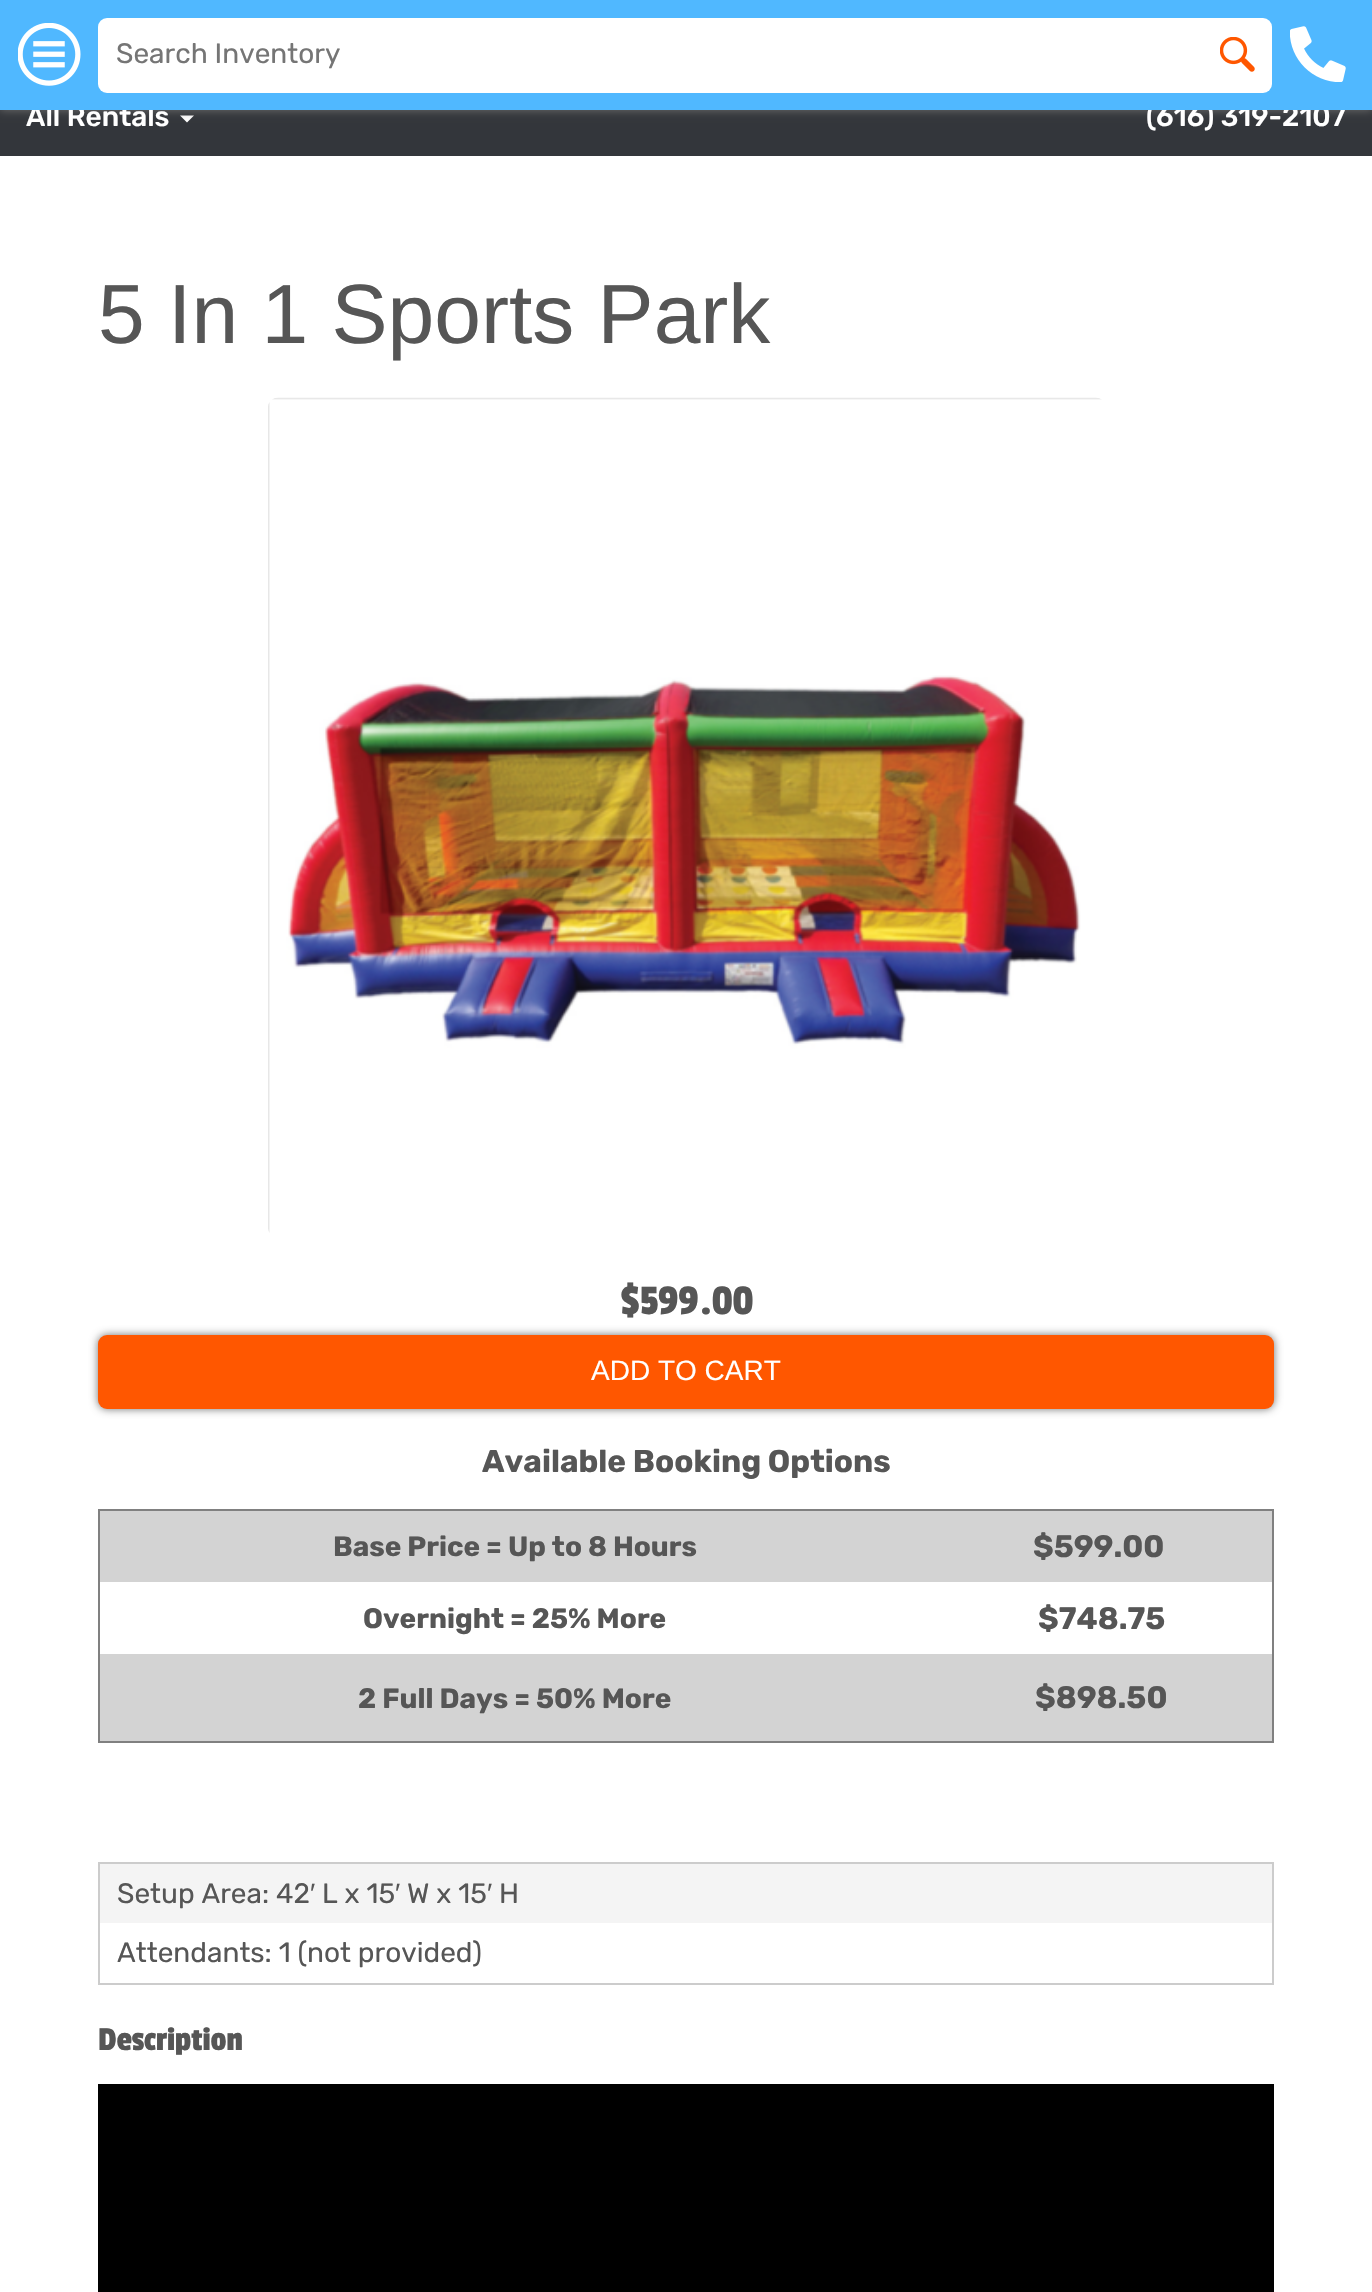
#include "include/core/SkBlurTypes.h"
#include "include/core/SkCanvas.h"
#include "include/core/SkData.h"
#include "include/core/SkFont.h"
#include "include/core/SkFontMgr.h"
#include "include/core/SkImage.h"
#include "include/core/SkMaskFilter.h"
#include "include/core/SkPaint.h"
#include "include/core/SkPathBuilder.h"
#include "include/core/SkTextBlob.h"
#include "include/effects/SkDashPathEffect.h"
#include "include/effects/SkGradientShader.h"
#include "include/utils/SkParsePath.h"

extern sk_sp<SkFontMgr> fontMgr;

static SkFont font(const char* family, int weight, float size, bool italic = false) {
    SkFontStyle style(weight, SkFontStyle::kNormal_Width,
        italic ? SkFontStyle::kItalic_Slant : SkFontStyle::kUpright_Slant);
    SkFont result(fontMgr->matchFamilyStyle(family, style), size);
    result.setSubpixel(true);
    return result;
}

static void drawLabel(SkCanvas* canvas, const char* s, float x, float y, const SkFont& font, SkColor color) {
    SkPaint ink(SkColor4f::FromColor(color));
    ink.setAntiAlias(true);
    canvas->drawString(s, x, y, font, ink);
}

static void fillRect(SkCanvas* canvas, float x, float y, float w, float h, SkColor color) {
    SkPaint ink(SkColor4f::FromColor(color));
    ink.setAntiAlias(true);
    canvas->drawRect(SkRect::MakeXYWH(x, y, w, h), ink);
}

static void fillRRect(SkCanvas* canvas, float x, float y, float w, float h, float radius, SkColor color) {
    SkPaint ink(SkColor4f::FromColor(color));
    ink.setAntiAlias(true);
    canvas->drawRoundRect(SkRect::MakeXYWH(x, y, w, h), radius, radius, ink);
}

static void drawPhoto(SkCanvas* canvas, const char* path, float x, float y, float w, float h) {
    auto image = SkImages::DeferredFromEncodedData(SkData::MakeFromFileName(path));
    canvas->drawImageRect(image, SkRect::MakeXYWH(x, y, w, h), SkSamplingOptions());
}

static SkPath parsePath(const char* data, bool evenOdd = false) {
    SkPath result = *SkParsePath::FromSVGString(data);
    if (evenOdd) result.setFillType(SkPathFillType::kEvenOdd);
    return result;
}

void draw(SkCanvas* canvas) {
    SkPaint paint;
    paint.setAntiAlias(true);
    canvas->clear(0xFFFFFFFF);
    fillRect(canvas, 0, 110, 1372, 46, 0xFF33363B);
    paint.setColor(0xFFFFFFFF);
    canvas->drawPath(parsePath("M180 115.5H194L187 122.5Z"), paint);
    paint.setColor(0xFF707070);
    paint.setMaskFilter(SkMaskFilter::MakeBlur(kNormal_SkBlurStyle, 4.5f));
    canvas->drawRect(SkRect::MakeXYWH(0, 0, 1372, 110), paint);
    paint.setMaskFilter(nullptr);
    SkFont font1 = font("Rubik", 500, 28);
    drawLabel(canvas, "All Rentals", 26, 126, font1, 0xFFFFFFFF);
    drawLabel(canvas, "(616) 319-2107", 1146, 126, font1, 0xFFFFFFFF);
    fillRect(canvas, 0, 0, 1372, 110, 0xFF50B8FF);
    drawPhoto(canvas, "assets/img1.png", 18, 23, 63, 63);
    fillRRect(canvas, 98, 18, 1174, 75, 9, 0xFFFFFFFF);
    SkFont font2 = font("Rubik", 400, 28);
    drawLabel(canvas, "Search Inventory", 116, 63, font2, 0xFF757575);
    drawPhoto(canvas, "assets/img2.png", 1220, 37, 35, 35);
    drawPhoto(canvas, "assets/img3.png", 1290, 26, 56, 56);
    SkFont font3 = font("Liberation Sans", 400, 84);
    drawLabel(canvas, "5 In 1 Sports Park", 98, 343, font3, 0xFF565656);
    drawPhoto(canvas, "assets/img4.png", 268, 397, 834, 836);
    SkFont font4 = font("Passion One", 400, 44);
    drawLabel(canvas, "$599.00", 620, 1314, font4, 0xFF565656);
    paint.setMaskFilter(SkMaskFilter::MakeBlur(kNormal_SkBlurStyle, 4.5f));
    canvas->drawRoundRect(SkRect::MakeXYWH(98, 1335, 1176, 74), 9, 9, paint);
    paint.setMaskFilter(nullptr);
    fillRRect(canvas, 98, 1335, 1176, 74, 9, 0xFFFF5700);
    SkFont font5 = font("Liberation Sans", 400, 28);
    drawLabel(canvas, "ADD TO CART", 591, 1380, font5, 0xFFFFFFFF);
    SkFont font6 = font("Rubik", 700, 31.5f);
    drawLabel(canvas, "Available Booking Options", 482, 1472, font6, 0xFF565656);
    fillRect(canvas, 98, 1509, 1176, 2, 0xFF808080);
    fillRect(canvas, 1272, 1509, 2, 234, 0xFF808080);
    fillRect(canvas, 98, 1741, 1176, 2, 0xFF808080);
    fillRect(canvas, 98, 1509, 2, 234, 0xFF808080);
    fillRect(canvas, 100, 1511, 1172, 71, 0xFFD3D3D3);
    SkFont font7 = font("Rubik", 700, 28);
    drawLabel(canvas, "Base Price = Up to 8 Hours", 333, 1556, font7, 0xFF565656);
    SkFont font8 = font("Rubik", 700, 31);
    drawLabel(canvas, "$599.00", 1033, 1557, font8, 0xFF565656);
    drawLabel(canvas, "Overnight = 25% More", 363, 1628, font7, 0xFF565656);
    drawLabel(canvas, "$748.75", 1038, 1629, font8, 0xFF565656);
    fillRect(canvas, 100, 1654, 1172, 87, 0xFFD3D3D3);
    drawLabel(canvas, "2 Full Days = 50% More", 358, 1708, font7, 0xFF565656);
    drawLabel(canvas, "$898.50", 1035, 1708, font8, 0xFF565656);
    paint.setStroke(true);
    paint.setStrokeWidth(2);
    paint.setColor(0xFFCCCCCC);
    canvas->drawRect(SkRect::MakeXYWH(99, 1863, 1174, 121), paint);
    fillRect(canvas, 100, 1864, 1172, 59, 0xFFF4F4F4);
    drawLabel(canvas, "Setup Area: 42", 117, 1903, font2, 0xFF565656);
    drawLabel(canvas, "′", 310, 1903, font5, 0xFF565656);
    drawLabel(canvas, "L x 15", 322, 1903, font2, 0xFF565656);
    drawLabel(canvas, "′", 395, 1903, font5, 0xFF565656);
    drawLabel(canvas, "W x 15", 407, 1903, font2, 0xFF565656);
    drawLabel(canvas, "′", 487, 1903, font5, 0xFF565656);
    drawLabel(canvas, "H", 499, 1903, font2, 0xFF565656);
    drawLabel(canvas, "Attendants: 1 (not provided)", 117, 1962, font2, 0xFF565656);
    SkFont font9 = font("Passion One", 400, 35);
    drawLabel(canvas, "Description", 98, 2050, font9, 0xFF565656);
    fillRect(canvas, 98, 2084, 1176, 208, 0xFF000000);
}
